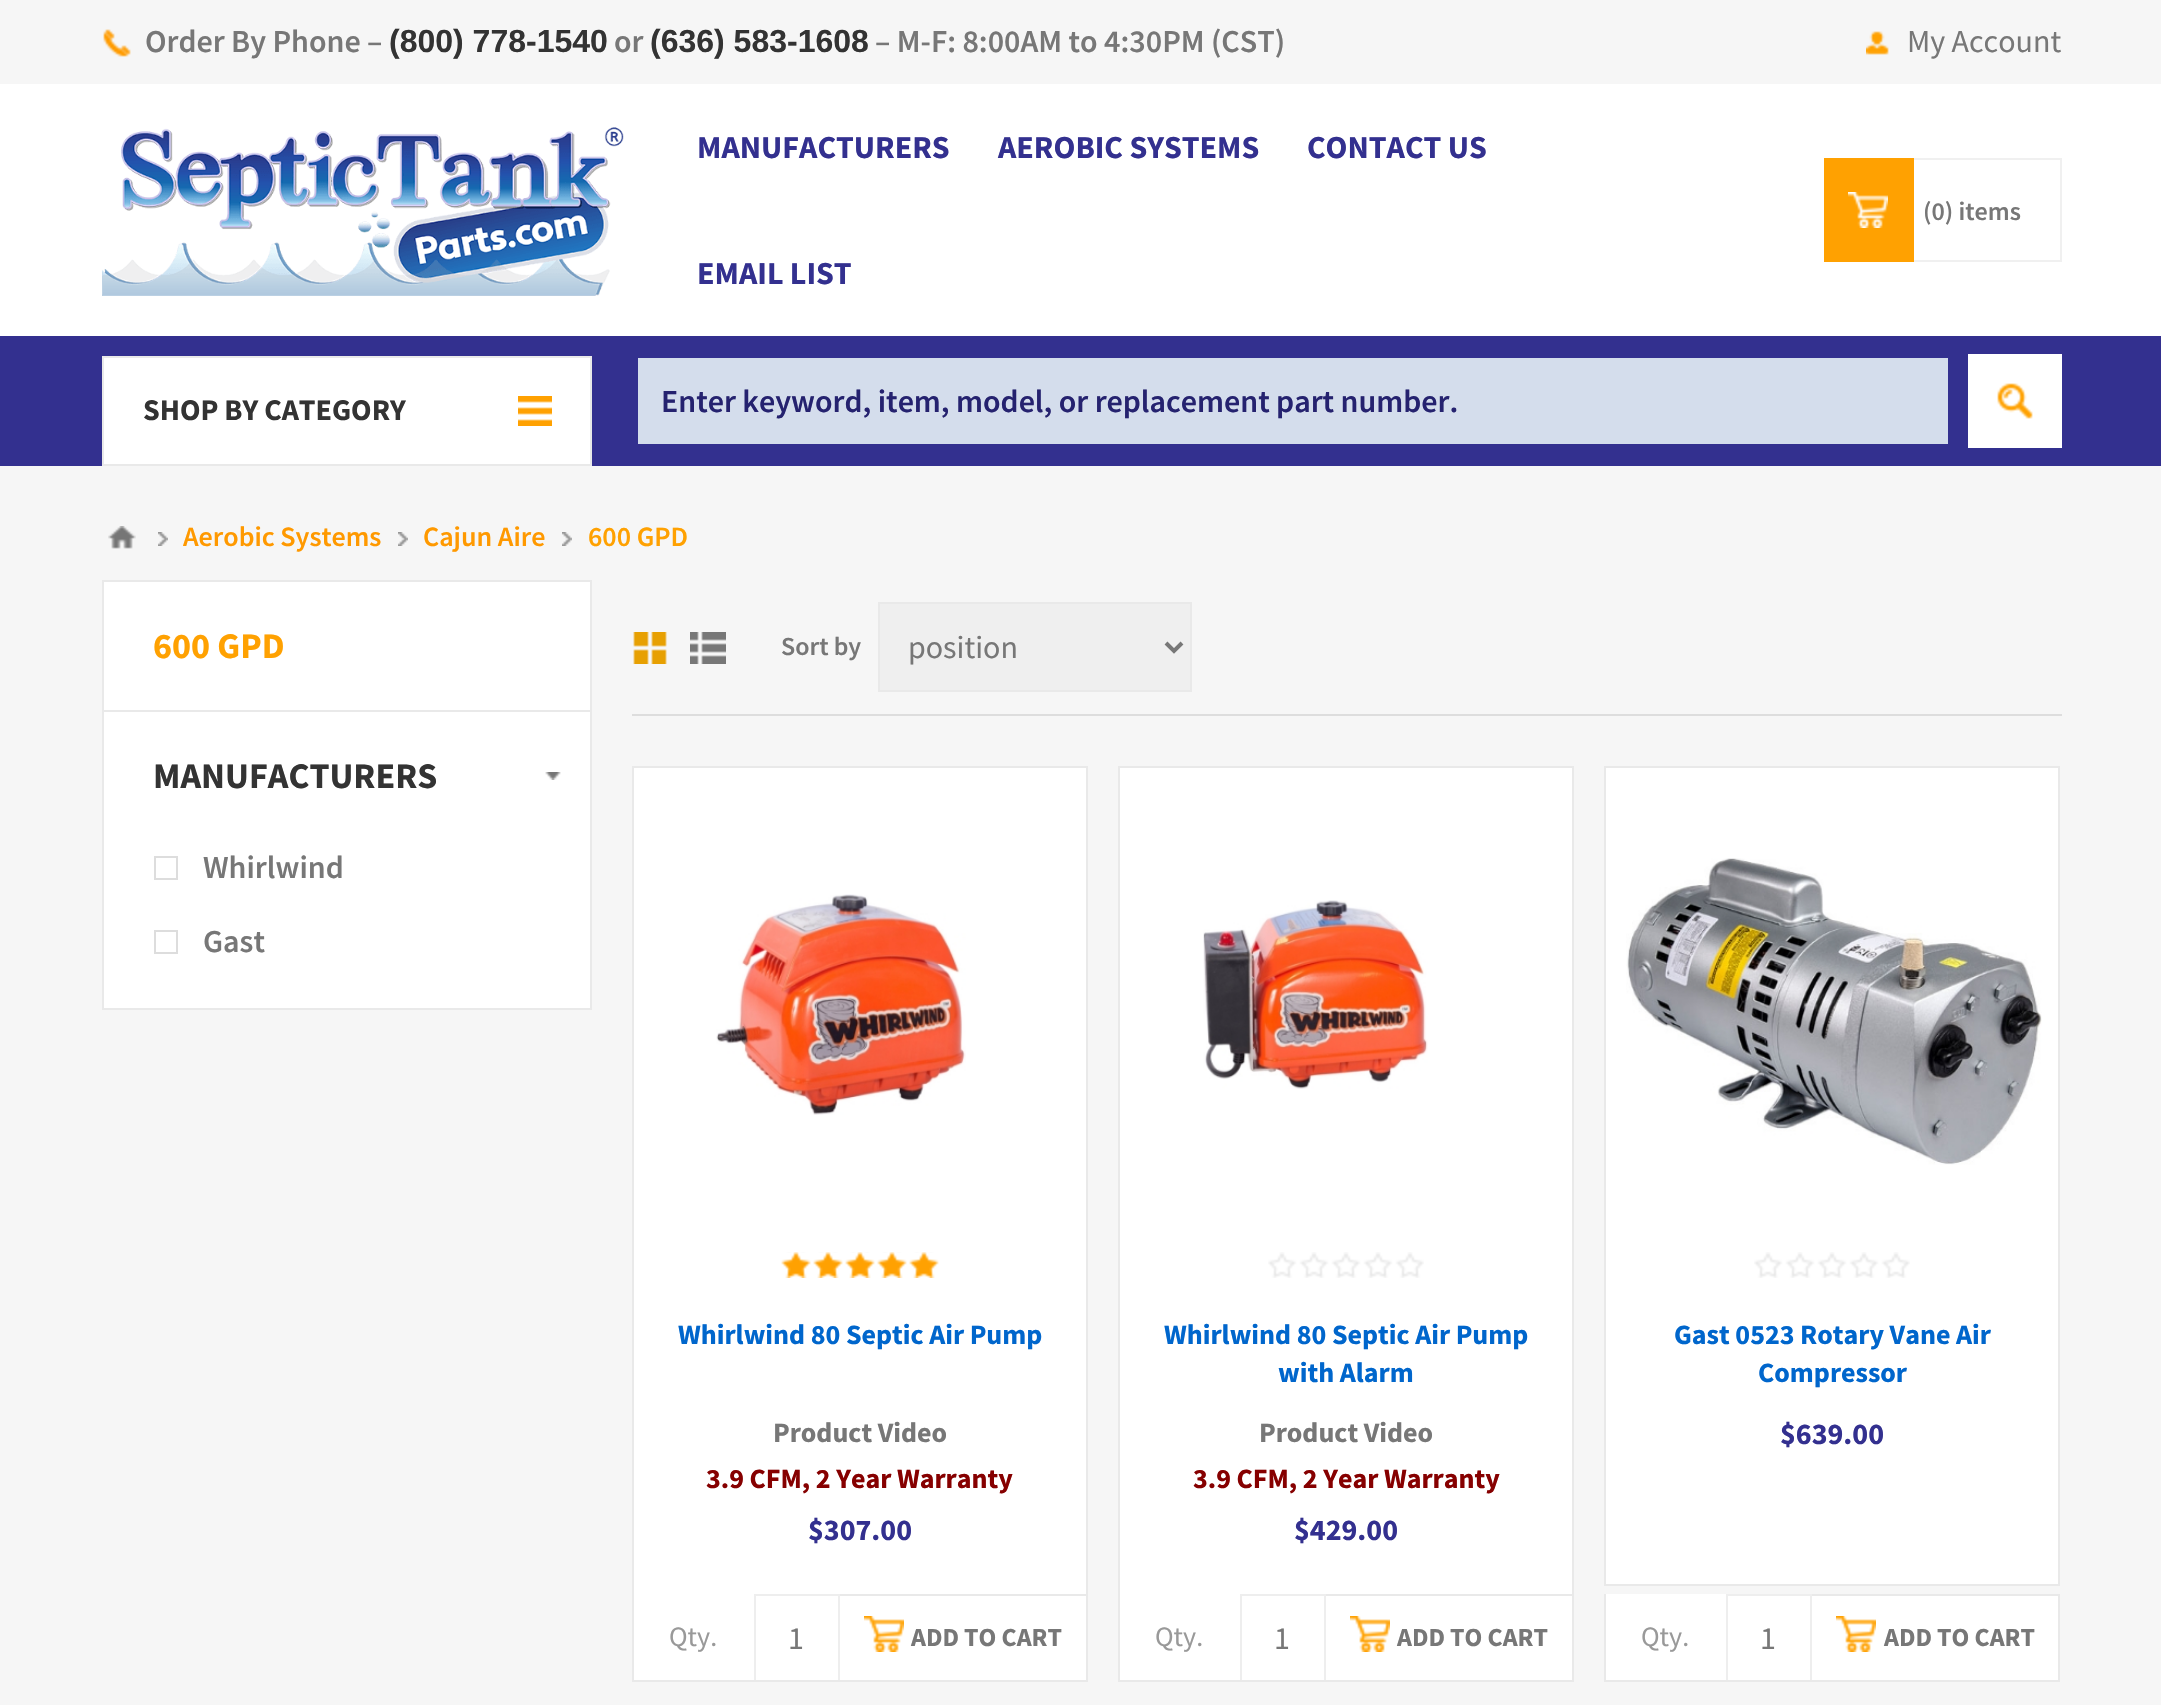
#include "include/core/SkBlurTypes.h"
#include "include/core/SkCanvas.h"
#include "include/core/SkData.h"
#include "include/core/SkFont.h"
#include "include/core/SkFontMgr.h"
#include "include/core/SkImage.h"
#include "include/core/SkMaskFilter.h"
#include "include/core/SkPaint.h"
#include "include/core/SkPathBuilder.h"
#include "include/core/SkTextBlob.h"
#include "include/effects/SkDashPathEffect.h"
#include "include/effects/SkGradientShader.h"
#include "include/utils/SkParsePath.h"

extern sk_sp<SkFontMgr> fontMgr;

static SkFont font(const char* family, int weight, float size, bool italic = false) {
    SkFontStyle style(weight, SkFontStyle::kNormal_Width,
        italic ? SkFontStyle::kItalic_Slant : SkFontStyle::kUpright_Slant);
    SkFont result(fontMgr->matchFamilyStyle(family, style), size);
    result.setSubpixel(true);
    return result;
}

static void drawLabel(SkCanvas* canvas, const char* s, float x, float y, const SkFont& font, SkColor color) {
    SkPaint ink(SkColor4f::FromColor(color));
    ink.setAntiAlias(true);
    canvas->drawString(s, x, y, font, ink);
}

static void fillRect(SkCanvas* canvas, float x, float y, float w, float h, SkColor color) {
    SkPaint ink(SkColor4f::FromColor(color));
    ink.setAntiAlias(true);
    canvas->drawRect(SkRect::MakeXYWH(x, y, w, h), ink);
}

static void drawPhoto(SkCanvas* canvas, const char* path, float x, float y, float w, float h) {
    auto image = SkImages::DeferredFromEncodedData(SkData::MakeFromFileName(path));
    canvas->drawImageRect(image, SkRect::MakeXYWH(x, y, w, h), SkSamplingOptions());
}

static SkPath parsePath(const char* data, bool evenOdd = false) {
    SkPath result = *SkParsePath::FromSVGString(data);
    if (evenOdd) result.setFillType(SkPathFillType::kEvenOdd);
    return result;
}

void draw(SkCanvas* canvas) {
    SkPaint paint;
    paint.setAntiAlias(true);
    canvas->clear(0xFFF6F6F6);
    drawPhoto(canvas, "assets/img1.png", 103, 29, 28, 28);
    SkFont font1 = font("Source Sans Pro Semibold", 600, 32);
    drawLabel(canvas, "Order By Phone –", 145, 52, font1, 0xFF777777);
    SkFont font2 = font("Liberation Sans", 700, 32);
    drawLabel(canvas, "(800) 778-1540", 389, 52, font2, 0xFF333333);
    drawLabel(canvas, "or", 614, 52, font1, 0xFF777777);
    drawLabel(canvas, "(636) 583-1608", 650, 52, font2, 0xFF333333);
    drawLabel(canvas, "– M-F: 8:00AM to 4:30PM (CST)", 875, 52, font1, 0xFF777777);
    drawPhoto(canvas, "assets/img2.png", 1866, 31, 23, 24);
    SkFont font3 = font("Source Sans Pro", 400, 32);
    drawLabel(canvas, "My Account", 1907, 52, font3, 0xFF777777);
    fillRect(canvas, 0, 84, 2161, 252, 0xFFFFFFFF);
    drawPhoto(canvas, "assets/img3.png", 102, 127, 522, 169);
    SkFont font4 = font("Source Sans Pro", 700, 32);
    drawLabel(canvas, "MANUFACTURERS", 697, 158, font4, 0xFF33308F);
    drawLabel(canvas, "AEROBIC SYSTEMS", 998, 158, font4, 0xFF33308F);
    drawLabel(canvas, "CONTACT US", 1307, 158, font4, 0xFF33308F);
    drawLabel(canvas, "EMAIL LIST", 697, 284, font4, 0xFF33308F);
    paint.setStroke(true);
    paint.setStrokeWidth(2);
    paint.setColor(0xFFF0F0F0);
    canvas->drawRect(SkRect::MakeXYWH(1887, 159, 174, 102), paint);
    fillRect(canvas, 1824, 158, 90, 104, 0xFFFFA101);
    drawPhoto(canvas, "assets/img4.png", 1848, 192, 40, 36);
    SkFont font5 = font("Source Sans Pro Semibold", 600, 26);
    drawLabel(canvas, "(0) items", 1923, 220, font5, 0xFF777777);
    fillRect(canvas, 0, 336, 2161, 130, 0xFF33308F);
    paint.setStroke(false);
    paint.setColor(0xFFFFFFFF);
    canvas->drawRect(SkRect::MakeXYWH(103, 357, 488, 108), paint);
    paint.setStroke(true);
    paint.setColor(0xFFE9E9E9);
    canvas->drawRect(SkRect::MakeXYWH(103, 357, 488, 108), paint);
    SkFont font6 = font("Source Sans Pro", 700, 30);
    drawLabel(canvas, "SHOP BY CATEGORY", 143, 420, font6, 0xFF333333);
    fillRect(canvas, 518, 396, 34, 30, 0xFFFFA101);
    drawPhoto(canvas, "assets/img5.png", 518, 401, 34, 20);
    fillRect(canvas, 638, 358, 1310, 86, 0xFFD4DDEC);
    drawLabel(canvas, "Enter keyword, item, model, or replacement part number.", 661, 412, font1, 0xFF25226F);
    fillRect(canvas, 1997, 383, 36, 36, 0xFFFFA101);
    drawPhoto(canvas, "assets/img6.png", 1968, 354, 94, 94);
    drawPhoto(canvas, "assets/img7.png", 108, 526, 28, 23);
    drawPhoto(canvas, "assets/img8.png", 158, 532, 10, 14);
    SkFont font7 = font("Source Sans Pro Semibold", 600, 28);
    drawLabel(canvas, "Aerobic Systems", 183, 546, font7, 0xFFFF9900);
    drawPhoto(canvas, "assets/img8.png", 398, 532, 10, 14);
    drawLabel(canvas, "Cajun Aire", 423, 546, font7, 0xFFFF9900);
    drawPhoto(canvas, "assets/img8.png", 562, 532, 10, 14);
    drawLabel(canvas, "600 GPD", 588, 546, font7, 0xFFFFA101);
    paint.setStroke(false);
    paint.setColor(0xFFFFFFFF);
    canvas->drawRect(SkRect::MakeXYWH(103, 581, 488, 130), paint);
    paint.setStroke(true);
    paint.setColor(0xFFE9E9E9);
    canvas->drawRect(SkRect::MakeXYWH(103, 581, 488, 130), paint);
    SkFont font8 = font("Source Sans Pro", 700, 36);
    drawLabel(canvas, "600 GPD", 153, 658, font8, 0xFFFFA101);
    paint.setStroke(false);
    paint.setColor(0xFFFFFFFF);
    canvas->drawRect(SkRect::MakeXYWH(103, 711, 488, 298), paint);
    paint.setStroke(true);
    paint.setColor(0xFFE9E9E9);
    canvas->drawRect(SkRect::MakeXYWH(103, 711, 488, 298), paint);
    drawPhoto(canvas, "assets/img9.png", 545, 772, 16, 8);
    drawLabel(canvas, "MANUFACTURERS", 153, 788, font8, 0xFF333333);
    paint.setColor(0xFFDDDDDD);
    canvas->drawRect(SkRect::MakeXYWH(155, 857, 22, 22), paint);
    drawLabel(canvas, "Whirlwind", 203, 878, font1, 0xFF777777);
    canvas->drawRect(SkRect::MakeXYWH(155, 931, 22, 22), paint);
    drawLabel(canvas, "Gast", 203, 952, font1, 0xFF777777);
    fillRect(canvas, 632, 714, 1430, 2, 0xFFDDDDDD);
    fillRect(canvas, 633, 632, 34, 32, 0xFFE7A002);
    drawPhoto(canvas, "assets/img10.png", 632, 632, 36, 32);
    fillRect(canvas, 690, 632, 36, 32, 0xFF777777);
    drawPhoto(canvas, "assets/img11.png", 690, 632, 36, 32);
    drawLabel(canvas, "Sort by", 781, 655, font5, 0xFF777777);
    paint.setStroke(false);
    paint.setColor(0xFFEFEFEF);
    canvas->drawRect(SkRect::MakeXYWH(879, 603, 312, 88), paint);
    paint.setStroke(true);
    paint.setColor(0xFFE9E9E9);
    canvas->drawRect(SkRect::MakeXYWH(879, 603, 312, 88), paint);
    paint.setStrokeWidth(4);
    paint.setColor(0xFF777777);
    canvas->drawPath(parsePath("M1166 643L1174 651L1182 643"), paint);
    drawLabel(canvas, "position", 908, 658, font3, 0xFF777777);
    fillRect(canvas, 634, 768, 452, 826, 0xFFFFFFFF);
    paint.setStrokeWidth(2);
    paint.setColor(0xFFE9E9E9);
    canvas->drawRect(SkRect::MakeXYWH(633, 767, 454, 914), paint);
    drawPhoto(canvas, "assets/img12.png", 716, 894, 250, 221);
    fillRect(canvas, 781, 1252, 158, 26, 0xFFFFA101);
    drawPhoto(canvas, "assets/img13.png", 780, 1252, 160, 26);
    SkFont font9 = font("Source Sans Pro", 700, 28);
    drawLabel(canvas, "Whirlwind 80 Septic Air Pump", 678, 1344, font9, 0xFF0066CC);
    drawLabel(canvas, "Product Video", 773, 1442, font9, 0xFF777777);
    drawLabel(canvas, "3.9 CFM, 2 Year Warranty", 706, 1488, font9, 0xFF860000);
    drawLabel(canvas, "$307.00", 808, 1540, font6, 0xFF33308F);
    fillRect(canvas, 756, 1596, 330, 84, 0xFFFFFFFF);
    fillRect(canvas, 634, 1594, 120, 86, 0xFFFFFFFF);
    SkFont font10 = font("Source Sans Pro", 400, 28);
    drawLabel(canvas, "Qty.", 669, 1646, font10, 0xFF999999);
    fillRect(canvas, 754, 1594, 86, 2, 0xFFEEEEEE);
    fillRect(canvas, 838, 1594, 2, 86, 0xFFEEEEEE);
    fillRect(canvas, 754, 1594, 2, 86, 0xFFEEEEEE);
    drawLabel(canvas, "1", 788, 1649, font3, 0xFF777777);
    fillRect(canvas, 840, 1594, 246, 2, 0xFFE9E9E9);
    fillRect(canvas, 864, 1616, 40, 36, 0xFFFFA101);
    drawPhoto(canvas, "assets/img14.png", 864, 1616, 40, 36);
    SkFont font11 = font("Source Sans Pro", 700, 26);
    drawLabel(canvas, "ADD TO CART", 911, 1646, font11, 0xFF777777);
    fillRect(canvas, 1120, 768, 452, 826, 0xFFFFFFFF);
    canvas->drawRect(SkRect::MakeXYWH(1119, 767, 454, 914), paint);
    drawPhoto(canvas, "assets/img15.png", 1203, 900, 225, 189);
    drawPhoto(canvas, "assets/img16.png", 1268, 1252, 156, 26);
    drawLabel(canvas, "Whirlwind 80 Septic Air Pump", 1164, 1344, font9, 0xFF0066CC);
    drawLabel(canvas, "with Alarm", 1278, 1382, font9, 0xFF0066CC);
    drawLabel(canvas, "Product Video", 1259, 1442, font9, 0xFF777777);
    drawLabel(canvas, "3.9 CFM, 2 Year Warranty", 1193, 1488, font9, 0xFF860000);
    drawLabel(canvas, "$429.00", 1294, 1540, font6, 0xFF33308F);
    fillRect(canvas, 1242, 1596, 330, 84, 0xFFFFFFFF);
    fillRect(canvas, 1120, 1594, 120, 86, 0xFFFFFFFF);
    drawLabel(canvas, "Qty.", 1155, 1646, font10, 0xFF999999);
    fillRect(canvas, 1240, 1594, 86, 2, 0xFFEEEEEE);
    fillRect(canvas, 1324, 1594, 2, 86, 0xFFEEEEEE);
    fillRect(canvas, 1240, 1594, 2, 86, 0xFFEEEEEE);
    drawLabel(canvas, "1", 1274, 1649, font3, 0xFF777777);
    fillRect(canvas, 1326, 1594, 246, 2, 0xFFE9E9E9);
    fillRect(canvas, 1350, 1616, 40, 36, 0xFFFFA101);
    drawPhoto(canvas, "assets/img14.png", 1350, 1616, 40, 36);
    drawLabel(canvas, "ADD TO CART", 1397, 1646, font11, 0xFF777777);
    paint.setStroke(false);
    paint.setColor(0xFFFFFFFF);
    canvas->drawRect(SkRect::MakeXYWH(1605, 767, 454, 818), paint);
    paint.setStroke(true);
    paint.setColor(0xFFE9E9E9);
    canvas->drawRect(SkRect::MakeXYWH(1605, 767, 454, 818), paint);
    drawPhoto(canvas, "assets/img17.png", 1626, 858, 416, 307);
    drawPhoto(canvas, "assets/img16.png", 1754, 1252, 156, 26);
    drawLabel(canvas, "Gast 0523 Rotary Vane Air", 1674, 1344, font9, 0xFF0066CC);
    drawLabel(canvas, "Compressor", 1758, 1382, font9, 0xFF0066CC);
    drawLabel(canvas, "$639.00", 1780, 1444, font6, 0xFF33308F);
    fillRect(canvas, 1728, 1596, 330, 84, 0xFFFFFFFF);
    fillRect(canvas, 2058, 1594, 2, 88, 0xFFE9E9E9);
    fillRect(canvas, 1604, 1680, 456, 2, 0xFFE9E9E9);
    fillRect(canvas, 1604, 1594, 2, 88, 0xFFE9E9E9);
    fillRect(canvas, 1606, 1594, 120, 86, 0xFFFFFFFF);
    drawLabel(canvas, "Qty.", 1641, 1646, font10, 0xFF999999);
    fillRect(canvas, 1726, 1594, 86, 2, 0xFFEEEEEE);
    fillRect(canvas, 1810, 1594, 2, 86, 0xFFEEEEEE);
    fillRect(canvas, 1726, 1594, 2, 86, 0xFFEEEEEE);
    drawLabel(canvas, "1", 1760, 1649, font3, 0xFF777777);
    fillRect(canvas, 1812, 1594, 246, 2, 0xFFE9E9E9);
    fillRect(canvas, 1836, 1616, 40, 36, 0xFFFFA101);
    drawPhoto(canvas, "assets/img14.png", 1836, 1616, 40, 36);
    drawLabel(canvas, "ADD TO CART", 1884, 1646, font11, 0xFF777777);
}
